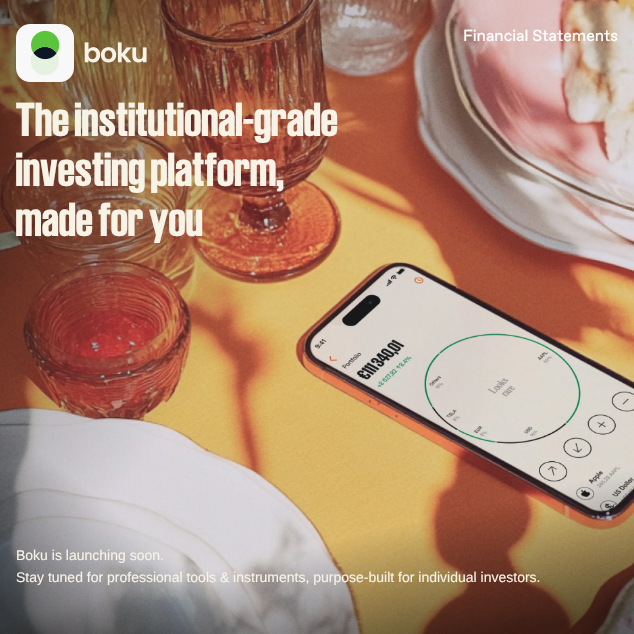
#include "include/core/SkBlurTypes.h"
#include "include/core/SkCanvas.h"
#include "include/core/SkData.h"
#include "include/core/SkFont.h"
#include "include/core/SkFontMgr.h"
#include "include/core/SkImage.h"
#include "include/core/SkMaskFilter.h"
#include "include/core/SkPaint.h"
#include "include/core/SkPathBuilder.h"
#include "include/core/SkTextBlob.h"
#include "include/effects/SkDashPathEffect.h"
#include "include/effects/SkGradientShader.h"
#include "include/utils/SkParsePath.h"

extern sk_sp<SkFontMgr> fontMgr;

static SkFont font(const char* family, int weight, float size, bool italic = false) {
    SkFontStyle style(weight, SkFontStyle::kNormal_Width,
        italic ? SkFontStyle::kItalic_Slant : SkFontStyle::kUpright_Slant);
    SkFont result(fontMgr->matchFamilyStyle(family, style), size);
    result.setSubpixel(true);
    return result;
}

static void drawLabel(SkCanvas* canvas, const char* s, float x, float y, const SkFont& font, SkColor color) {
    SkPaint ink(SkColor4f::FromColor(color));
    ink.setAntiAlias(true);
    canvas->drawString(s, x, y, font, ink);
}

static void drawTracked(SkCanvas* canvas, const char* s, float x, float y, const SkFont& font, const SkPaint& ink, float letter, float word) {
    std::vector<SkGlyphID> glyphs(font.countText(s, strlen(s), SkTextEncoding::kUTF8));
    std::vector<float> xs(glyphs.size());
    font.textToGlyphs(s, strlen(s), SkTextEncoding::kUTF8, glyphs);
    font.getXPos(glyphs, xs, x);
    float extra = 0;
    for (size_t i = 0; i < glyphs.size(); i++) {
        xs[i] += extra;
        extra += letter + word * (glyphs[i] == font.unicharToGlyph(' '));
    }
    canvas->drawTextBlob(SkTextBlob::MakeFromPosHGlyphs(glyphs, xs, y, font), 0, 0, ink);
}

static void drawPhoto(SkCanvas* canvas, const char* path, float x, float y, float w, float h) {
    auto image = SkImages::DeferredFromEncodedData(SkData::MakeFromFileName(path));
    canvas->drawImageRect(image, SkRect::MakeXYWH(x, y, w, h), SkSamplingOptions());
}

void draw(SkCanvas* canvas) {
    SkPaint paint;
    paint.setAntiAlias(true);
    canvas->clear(0xFFFFFFFF);
    drawPhoto(canvas, "assets/img1.png", 0, 0, 634, 634);
    drawPhoto(canvas, "assets/img2.png", 16, 24, 131, 58);
    SkFont font1 = font("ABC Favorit", 400, 16);
    drawLabel(canvas, "Financial Statements", 463, 41, font1, 0xFFFFFFFF);
    SkFont font2 = font("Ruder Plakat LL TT", 400, 42);
    paint.setColor(0xFFF8F3E7);
    drawTracked(canvas, "The institutional-grade", 16, 136, font2, paint, 1, 0);
    drawTracked(canvas, "investing platform,", 16, 186, font2, paint, 1, 0);
    drawTracked(canvas, "made for you", 16, 236, font2, paint, 1, 0);
    SkFont font3 = font("Liberation Sans", 400, 14);
    drawLabel(canvas, "Boku is launching soon.", 16, 560, font3, 0xFFF8F3E7);
    drawLabel(canvas, "Stay tuned for professional tools & instruments, purpose-built for individual investors.", 16, 582, font3, 0xFFF8F3E7);
}
